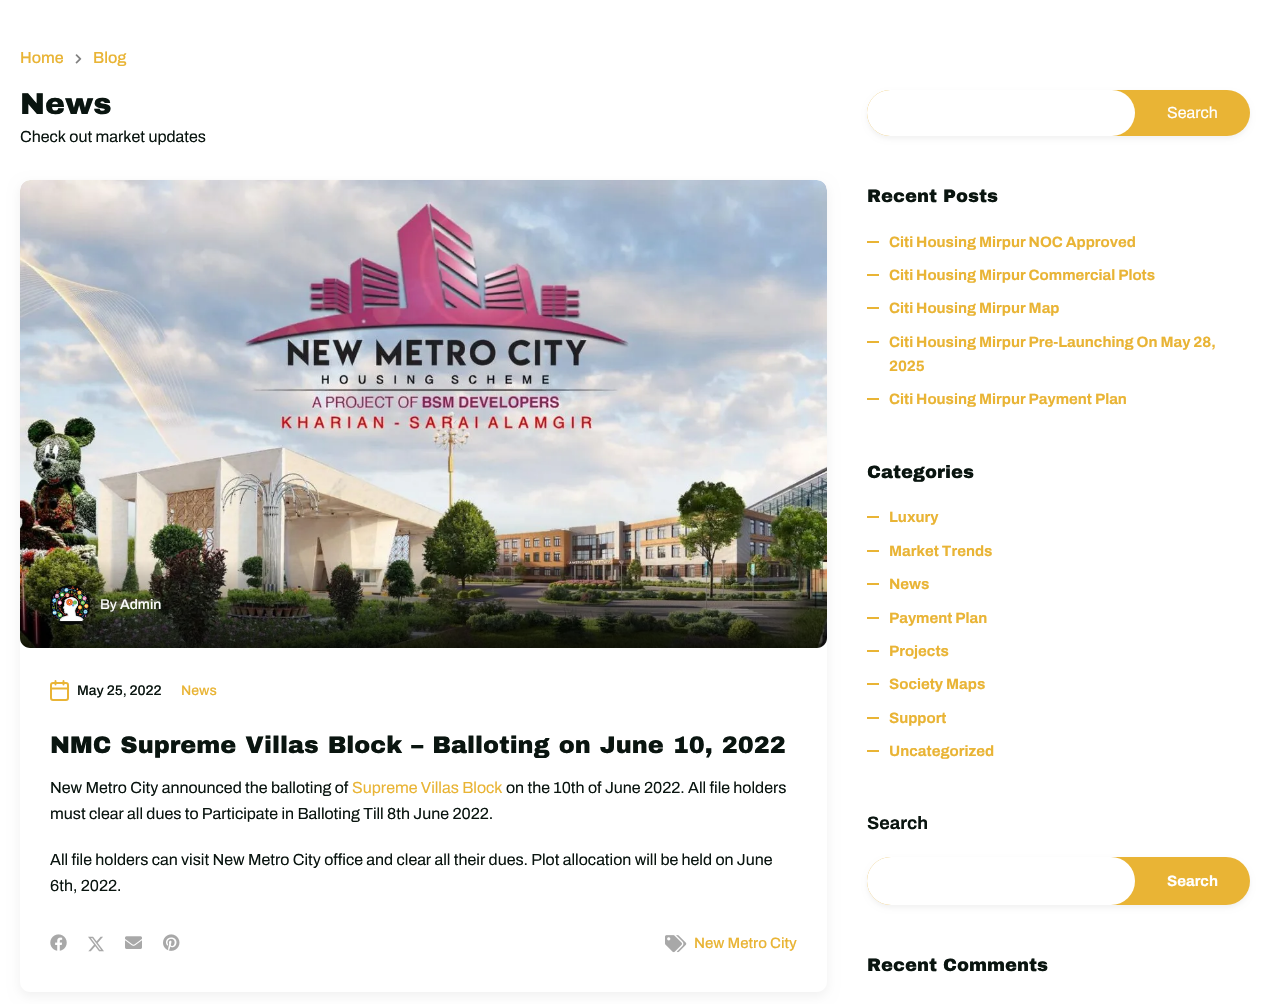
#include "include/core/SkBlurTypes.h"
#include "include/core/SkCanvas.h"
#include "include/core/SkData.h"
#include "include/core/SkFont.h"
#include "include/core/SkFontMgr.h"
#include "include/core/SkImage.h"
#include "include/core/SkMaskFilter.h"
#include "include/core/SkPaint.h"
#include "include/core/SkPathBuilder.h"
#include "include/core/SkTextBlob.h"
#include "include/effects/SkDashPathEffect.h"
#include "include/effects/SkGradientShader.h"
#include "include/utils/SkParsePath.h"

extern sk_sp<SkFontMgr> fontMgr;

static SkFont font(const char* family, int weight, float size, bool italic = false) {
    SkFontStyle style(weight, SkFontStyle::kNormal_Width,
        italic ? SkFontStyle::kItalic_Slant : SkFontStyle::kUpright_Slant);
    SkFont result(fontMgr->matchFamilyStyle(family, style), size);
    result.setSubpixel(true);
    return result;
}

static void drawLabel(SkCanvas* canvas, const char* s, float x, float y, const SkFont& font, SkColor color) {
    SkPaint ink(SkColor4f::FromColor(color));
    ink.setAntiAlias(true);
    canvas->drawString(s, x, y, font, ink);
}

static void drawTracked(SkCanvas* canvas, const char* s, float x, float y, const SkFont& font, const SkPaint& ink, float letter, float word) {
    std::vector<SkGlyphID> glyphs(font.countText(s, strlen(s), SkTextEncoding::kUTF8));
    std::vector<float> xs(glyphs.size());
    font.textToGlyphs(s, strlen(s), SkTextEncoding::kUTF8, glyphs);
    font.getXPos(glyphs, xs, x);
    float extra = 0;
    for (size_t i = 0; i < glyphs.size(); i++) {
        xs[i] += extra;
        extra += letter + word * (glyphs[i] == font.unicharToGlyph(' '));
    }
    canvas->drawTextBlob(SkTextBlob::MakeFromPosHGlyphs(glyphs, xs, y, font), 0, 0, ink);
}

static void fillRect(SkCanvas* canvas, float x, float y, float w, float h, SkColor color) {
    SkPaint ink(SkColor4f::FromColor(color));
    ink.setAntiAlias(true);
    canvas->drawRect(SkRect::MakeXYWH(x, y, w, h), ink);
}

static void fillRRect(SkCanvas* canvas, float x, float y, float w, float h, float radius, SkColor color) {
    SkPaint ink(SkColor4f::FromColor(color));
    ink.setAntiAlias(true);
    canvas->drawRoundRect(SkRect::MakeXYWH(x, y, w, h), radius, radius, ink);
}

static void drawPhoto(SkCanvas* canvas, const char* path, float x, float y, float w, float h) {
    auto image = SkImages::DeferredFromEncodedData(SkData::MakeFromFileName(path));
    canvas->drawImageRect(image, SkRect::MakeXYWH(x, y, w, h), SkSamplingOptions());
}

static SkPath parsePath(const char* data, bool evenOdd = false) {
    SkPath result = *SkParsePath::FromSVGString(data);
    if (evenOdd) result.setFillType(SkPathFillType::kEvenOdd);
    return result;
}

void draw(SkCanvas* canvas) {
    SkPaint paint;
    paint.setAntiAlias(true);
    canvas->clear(0xFFFFFFFF);
    SkFont font1 = font("Archivo", 500, 16);
    drawLabel(canvas, "Home", 20, 63, font1, 0xFFE9B435);
    drawPhoto(canvas, "assets/img1.png", 75, 54, 7, 10);
    drawLabel(canvas, "Blog", 93, 63, font1, 0xFFE9B435);
    SkFont font2 = font("Archivo Black", 900, 30);
    drawLabel(canvas, "News", 20, 114, font2, 0xFF0A1510);
    SkFont font3 = font("Archivo", 400, 16);
    drawLabel(canvas, "Check out market updates", 20, 142, font3, 0xFF0A1510);
    canvas->save();
    canvas->clipPath(parsePath("M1 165H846V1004H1ZM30 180H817C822.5 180 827 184.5 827 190V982C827 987.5 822.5 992 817 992H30C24.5 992 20 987.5 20 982V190C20 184.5 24.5 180 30 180Z", true), true);
    paint.setColor(0x0F000000);
    paint.setMaskFilter(SkMaskFilter::MakeBlur(kNormal_SkBlurStyle, 6));
    canvas->drawRoundRect(SkRect::MakeXYWH(20, 184, 807, 812), 10, 10, paint);
    paint.setMaskFilter(nullptr);
    canvas->restore();
    drawPhoto(canvas, "assets/img2.png", 20, 180, 807, 468);
    {
        const SkColor colors[] = {0x00000000, 0xC4000000};
        const float stops[] = {0, 1};
        const SkPoint ends[] = {{424, 560}, {424, 648}};
        paint.setShader(SkGradientShader::MakeLinear(ends, colors, stops, 2, SkTileMode::kClamp));
        paint.setAlpha(255);
    }
    canvas->drawPath(parsePath("M20 560H827V638C827 643.5 822.5 648 817 648H30C24.5 648 20 643.5 20 638Z"), paint);
    drawPhoto(canvas, "assets/img3.png", 50, 585, 40, 40);
    SkFont font4 = font("Archivo", 400, 14);
    drawLabel(canvas, "By", 100, 609, font4, 0xFFFFFFFF);
    SkFont font5 = font("Archivo", 500, 14);
    drawLabel(canvas, "Admin", 120, 609, font5, 0xFFFFFFFF);
    paint.setStroke(true);
    paint.setStrokeWidth(2);
    paint.setShader(nullptr);
    paint.setColor(0xFFE9B435);
    canvas->drawRoundRect(SkRect::MakeXYWH(51, 683, 17, 17), 2, 2, paint);
    paint.setStrokeWidth(1.9f);
    paint.setStrokeCap(SkPaint::kRound_Cap);
    paint.setStrokeJoin(SkPaint::kRound_Join);
    canvas->drawPath(parsePath("M63.5 681V684.5M55.5 681V684.5M51 688.5H68"), paint);
    drawLabel(canvas, "May 25, 2022", 77, 695, font5, 0xFF0A1510);
    drawLabel(canvas, "News", 181, 695, font5, 0xFFE9B435);
    SkFont font6 = font("Archivo Black", 900, 24);
    paint.setStroke(false);
    paint.setColor(0xFF0A1510);
    drawTracked(canvas, "NMC Supreme Villas Block – Balloting on June 10, 2022", 50, 753, font6, paint, 0, 1);
    drawLabel(canvas, "New Metro City announced the balloting of", 50, 793, font3, 0xFF0A1510);
    drawLabel(canvas, "Supreme Villas Block", 352, 793, font3, 0xFFE9B435);
    drawLabel(canvas, "on the 10th of June 2022. All file holders", 506, 793, font3, 0xFF0A1510);
    drawLabel(canvas, "must clear all dues to Participate in Balloting Till 8th June 2022.", 50, 819, font3, 0xFF0A1510);
    drawLabel(canvas, "All file holders can visit New Metro City office and clear all their dues. Plot allocation will be held on June", 50, 865, font3, 0xFF0A1510);
    drawLabel(canvas, "6th, 2022.", 50, 891, font3, 0xFF0A1510);
    drawPhoto(canvas, "assets/img4.png", 50, 934, 17, 17);
    drawPhoto(canvas, "assets/img5.png", 88, 936, 16, 16);
    drawPhoto(canvas, "assets/img6.png", 125, 936, 17, 13);
    drawPhoto(canvas, "assets/img7.png", 163, 934, 17, 17);
    drawPhoto(canvas, "assets/img8.png", 665, 935, 22, 18);
    SkFont font7 = font("Archivo", 500, 15);
    drawLabel(canvas, "New Metro City", 694, 948, font7, 0xFFE9B435);
    paint.setColor(0x0D000000);
    paint.setMaskFilter(SkMaskFilter::MakeBlur(kNormal_SkBlurStyle, 2.5f));
    canvas->drawRoundRect(SkRect::MakeXYWH(867, 93, 383, 46), 23, 23, paint);
    paint.setMaskFilter(nullptr);
    fillRRect(canvas, 867, 90, 383, 46, 23, 0xFFE9B435);
    fillRRect(canvas, 867, 90, 268, 46, 23, 0xFFFFFFFF);
    drawLabel(canvas, "Search", 1167, 118, font3, 0xFFFFFFFF);
    SkFont font8 = font("Archivo Black", 900, 18);
    drawLabel(canvas, "Recent Posts", 867, 202, font8, 0xFF0A1510);
    fillRect(canvas, 867, 241, 12, 2, 0xFFE9B435);
    SkFont font9 = font("Archivo", 700, 15);
    drawLabel(canvas, "Citi Housing Mirpur NOC Approved", 889, 247, font9, 0xFFE9B435);
    fillRect(canvas, 867, 274, 12, 2, 0xFFE9B435);
    drawLabel(canvas, "Citi Housing Mirpur Commercial Plots", 889, 280, font9, 0xFFE9B435);
    fillRect(canvas, 867, 307, 12, 2, 0xFFE9B435);
    drawLabel(canvas, "Citi Housing Mirpur Map", 889, 313, font9, 0xFFE9B435);
    fillRect(canvas, 867, 341, 12, 2, 0xFFE9B435);
    drawLabel(canvas, "Citi Housing Mirpur Pre-Launching On May 28,", 889, 347, font9, 0xFFE9B435);
    drawLabel(canvas, "2025", 889, 371, font9, 0xFFE9B435);
    fillRect(canvas, 867, 398, 12, 2, 0xFFE9B435);
    drawLabel(canvas, "Citi Housing Mirpur Payment Plan", 889, 404, font9, 0xFFE9B435);
    drawLabel(canvas, "Categories", 867, 478, font8, 0xFF0A1510);
    fillRect(canvas, 867, 516, 12, 2, 0xFFE9B435);
    drawLabel(canvas, "Luxury", 889, 522, font9, 0xFFE9B435);
    fillRect(canvas, 867, 550, 12, 2, 0xFFE9B435);
    drawLabel(canvas, "Market Trends", 889, 556, font9, 0xFFE9B435);
    fillRect(canvas, 867, 583, 12, 2, 0xFFE9B435);
    drawLabel(canvas, "News", 889, 589, font9, 0xFFE9B435);
    fillRect(canvas, 867, 617, 12, 2, 0xFFE9B435);
    drawLabel(canvas, "Payment Plan", 889, 623, font9, 0xFFE9B435);
    fillRect(canvas, 867, 650, 12, 2, 0xFFE9B435);
    drawLabel(canvas, "Projects", 889, 656, font9, 0xFFE9B435);
    fillRect(canvas, 867, 683, 12, 2, 0xFFE9B435);
    drawLabel(canvas, "Society Maps", 889, 689, font9, 0xFFE9B435);
    fillRect(canvas, 867, 717, 12, 2, 0xFFE9B435);
    drawLabel(canvas, "Support", 889, 723, font9, 0xFFE9B435);
    fillRect(canvas, 867, 750, 12, 2, 0xFFE9B435);
    drawLabel(canvas, "Uncategorized", 889, 756, font9, 0xFFE9B435);
    SkFont font10 = font("Archivo", 700, 18);
    drawLabel(canvas, "Search", 867, 829, font10, 0xFF0A1510);
    paint.setMaskFilter(SkMaskFilter::MakeBlur(kNormal_SkBlurStyle, 2.5f));
    canvas->drawRoundRect(SkRect::MakeXYWH(867, 860, 383, 48), 24, 24, paint);
    paint.setMaskFilter(nullptr);
    fillRRect(canvas, 867, 857, 383, 48, 24, 0xFFE9B435);
    fillRRect(canvas, 867, 857, 268, 48, 24, 0xFFFFFFFF);
    drawLabel(canvas, "Search", 1167, 886, font9, 0xFFFFFFFF);
    drawLabel(canvas, "Recent Comments", 867, 971, font8, 0xFF0A1510);
}
